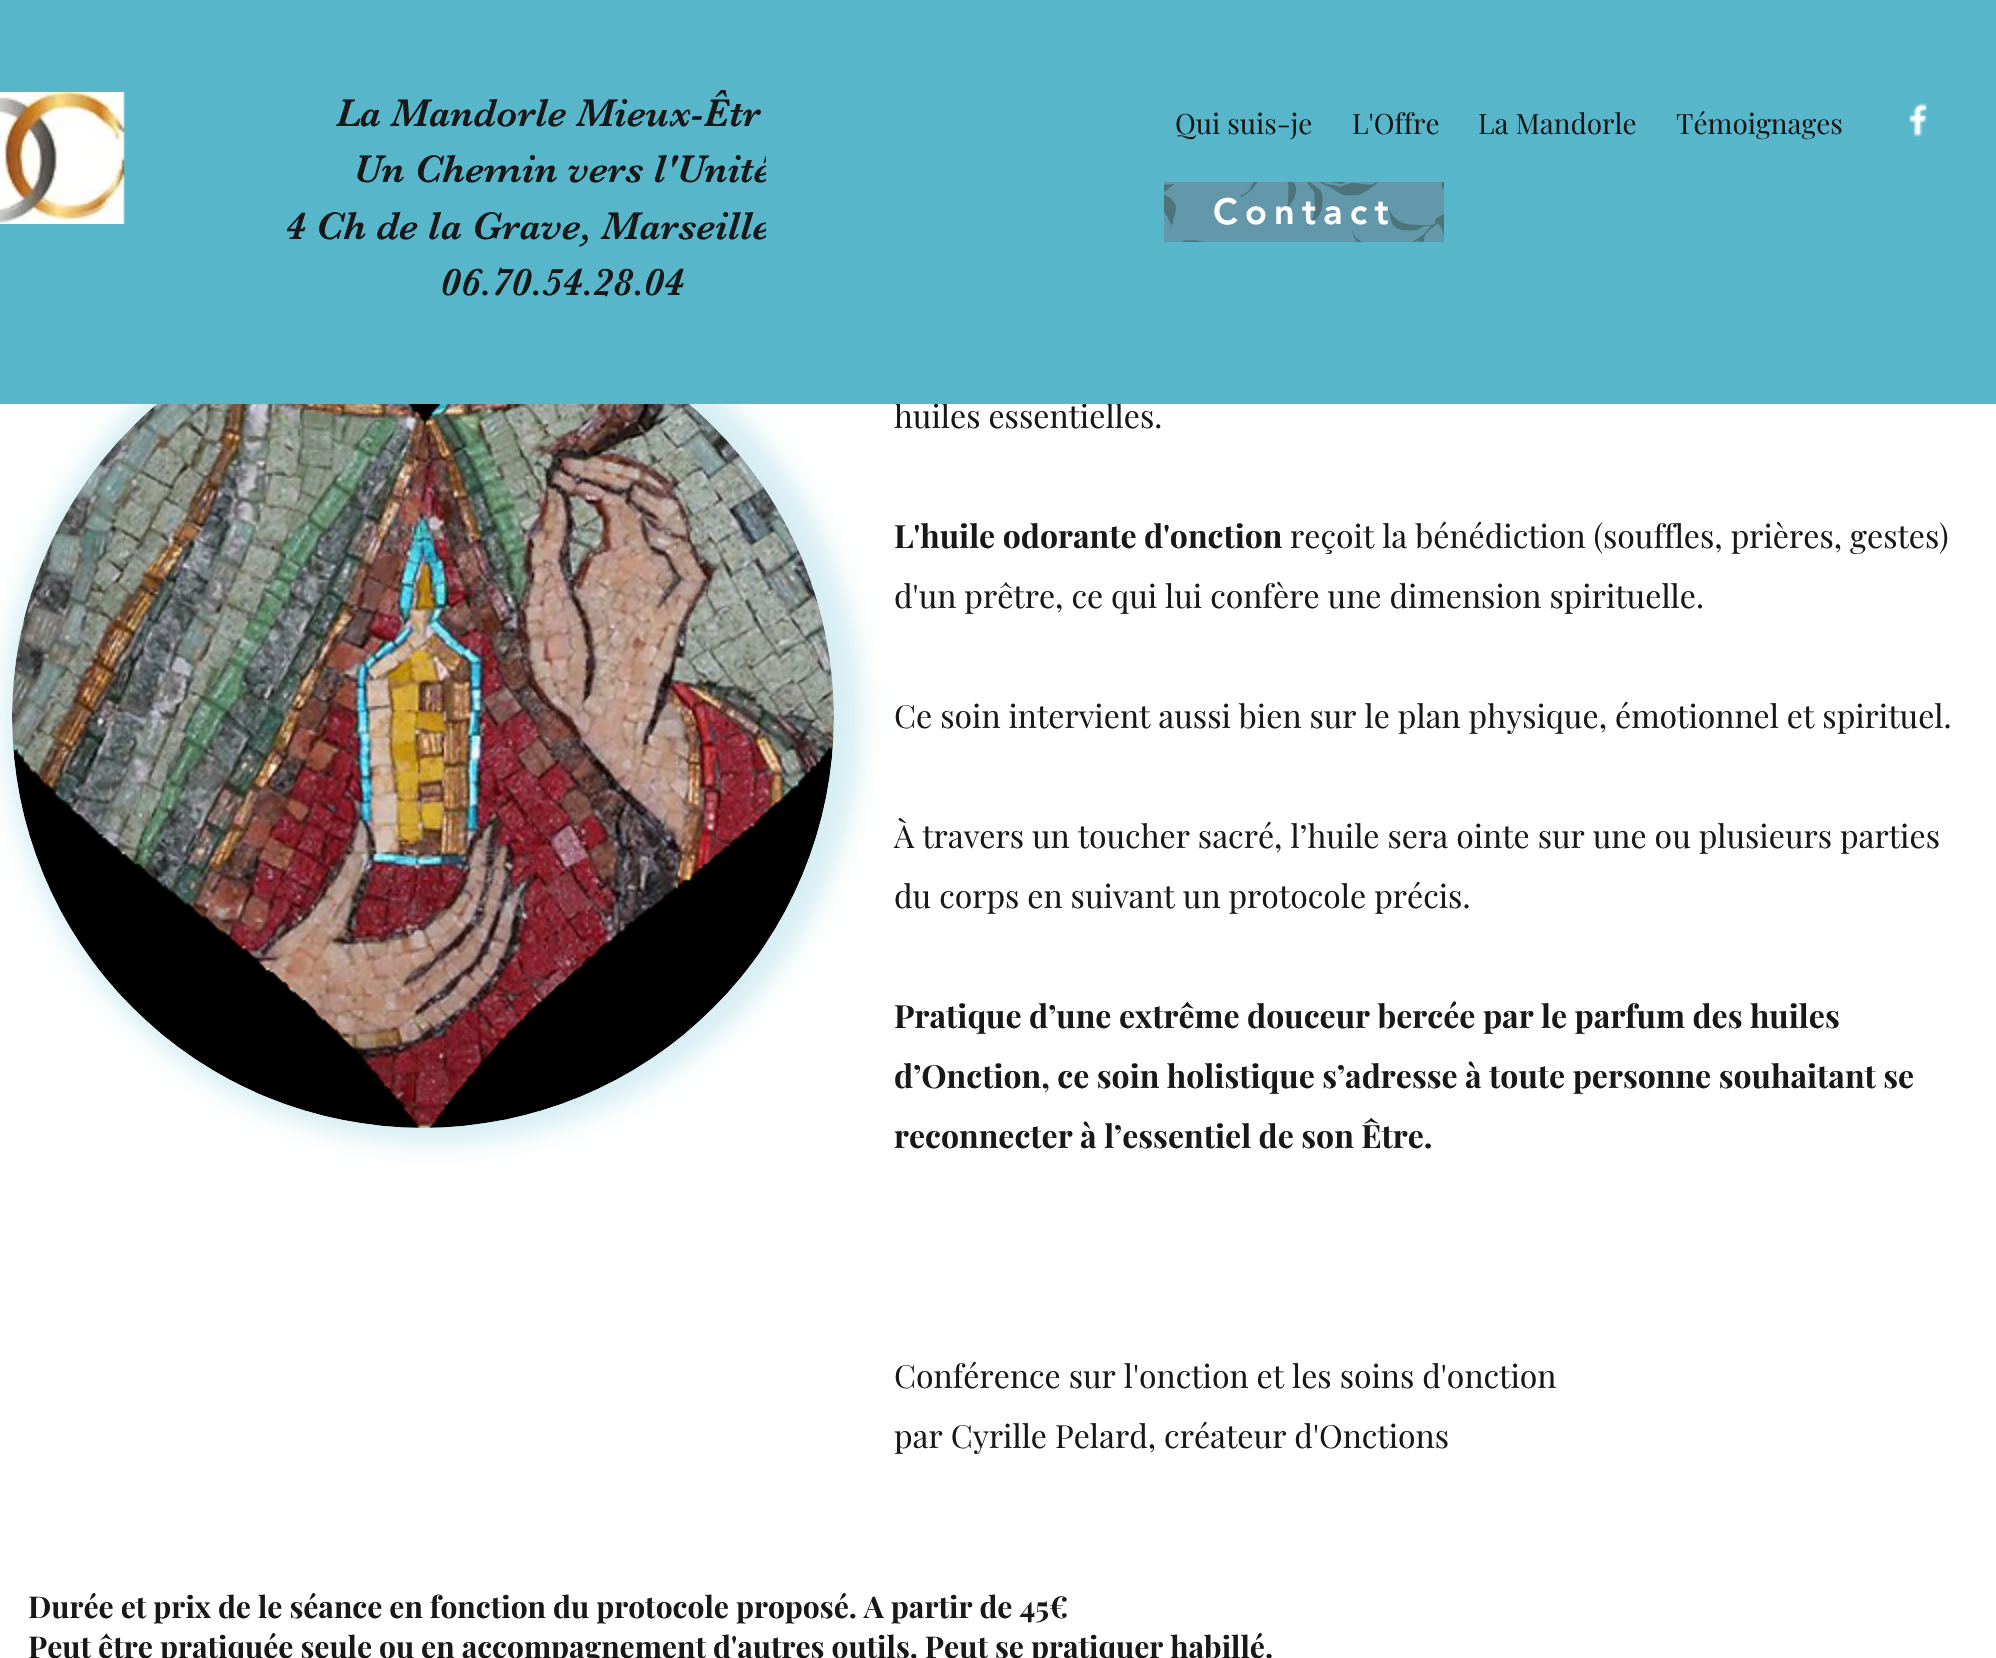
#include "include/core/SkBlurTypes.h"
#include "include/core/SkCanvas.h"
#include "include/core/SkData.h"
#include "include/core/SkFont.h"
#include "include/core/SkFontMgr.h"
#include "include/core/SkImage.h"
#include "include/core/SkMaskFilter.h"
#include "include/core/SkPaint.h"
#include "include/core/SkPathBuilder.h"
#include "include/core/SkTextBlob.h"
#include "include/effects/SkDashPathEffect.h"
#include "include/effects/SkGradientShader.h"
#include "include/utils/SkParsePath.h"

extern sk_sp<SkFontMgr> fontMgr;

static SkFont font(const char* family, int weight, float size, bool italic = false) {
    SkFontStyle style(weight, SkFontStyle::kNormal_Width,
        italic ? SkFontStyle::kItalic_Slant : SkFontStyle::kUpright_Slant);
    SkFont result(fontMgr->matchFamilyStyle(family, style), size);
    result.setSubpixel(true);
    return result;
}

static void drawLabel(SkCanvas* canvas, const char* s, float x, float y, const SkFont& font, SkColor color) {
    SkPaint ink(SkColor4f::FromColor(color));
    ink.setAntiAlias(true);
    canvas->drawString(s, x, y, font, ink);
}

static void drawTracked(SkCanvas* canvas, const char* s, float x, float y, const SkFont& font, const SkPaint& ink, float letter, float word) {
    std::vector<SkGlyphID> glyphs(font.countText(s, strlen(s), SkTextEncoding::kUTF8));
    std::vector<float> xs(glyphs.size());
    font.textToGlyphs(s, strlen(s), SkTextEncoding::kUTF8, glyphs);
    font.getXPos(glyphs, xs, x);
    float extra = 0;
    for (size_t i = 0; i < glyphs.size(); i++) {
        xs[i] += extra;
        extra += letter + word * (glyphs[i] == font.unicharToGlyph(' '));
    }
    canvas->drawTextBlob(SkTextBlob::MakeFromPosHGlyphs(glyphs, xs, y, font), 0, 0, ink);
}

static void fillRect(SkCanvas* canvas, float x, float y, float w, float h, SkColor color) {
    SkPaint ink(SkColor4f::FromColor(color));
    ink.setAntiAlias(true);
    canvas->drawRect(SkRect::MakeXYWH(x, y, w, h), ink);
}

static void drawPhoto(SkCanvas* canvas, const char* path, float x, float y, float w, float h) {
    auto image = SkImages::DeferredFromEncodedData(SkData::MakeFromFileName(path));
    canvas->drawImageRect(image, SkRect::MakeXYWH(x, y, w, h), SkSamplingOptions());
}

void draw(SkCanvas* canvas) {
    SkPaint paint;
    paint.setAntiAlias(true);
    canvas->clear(0xFFFFFFFF);
    paint.setColor(0x7AABDBE5);
    paint.setMaskFilter(SkMaskFilter::MakeBlur(kNormal_SkBlurStyle, 12));
    canvas->drawRoundRect(SkRect::MakeXYWH(4, 286, 858, 858), 429, 429, paint);
    paint.setMaskFilter(nullptr);
    SkFont font1 = font("Playfair Display", 400, 32);
    drawLabel(canvas, "huiles essentielles.", 894, 428, font1, 0xFF181818);
    fillRect(canvas, 0, 0, 1996, 404, 0xFF58B6CB);
    drawPhoto(canvas, "assets/img1.png", 0, 92, 125, 132);
    SkFont font2 = font("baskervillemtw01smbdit", 400, 40);
    drawLabel(canvas, "La Mandorle Mieux-Êtr", 336, 126, font2, 0xFF181818);
    drawLabel(canvas, "Un Chemin vers l'Unité", 354, 182, font2, 0xFF181818);
    drawLabel(canvas, "4 Ch de la Grave, Marseille", 286, 239, font2, 0xFF181818);
    drawLabel(canvas, "06.70.54.28.04", 441, 295, font2, 0xFF181818);
    fillRect(canvas, 766, 156, 6, 81, 0xFF58B6CB);
    SkFont font3 = font("Playfair Display", 400, 28);
    drawLabel(canvas, "Qui suis-je", 1175, 134, font3, 0xFF181818);
    drawLabel(canvas, "L'Offre", 1352, 134, font3, 0xFF181818);
    drawLabel(canvas, "La Mandorle", 1478, 134, font3, 0xFF181818);
    drawLabel(canvas, "Témoignages", 1676, 134, font3, 0xFF181818);
    drawPhoto(canvas, "assets/img2.png", 1909, 103, 19, 34);
    fillRect(canvas, 1164, 182, 280, 60, 0xFF6298AA);
    drawPhoto(canvas, "assets/img3.png", 1164, 182, 280, 60);
    SkFont font4 = font("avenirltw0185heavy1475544", 900, 36);
    paint.setColor(0xFFFFFFFF);
    drawTracked(canvas, "Contact", 1213, 224, font4, paint, 7.25f, 0);
    drawPhoto(canvas, "assets/img4.png", 12, 404, 822, 724);
    SkFont font5 = font("Playfair Display", 700, 32);
    drawLabel(canvas, "L'huile odorante d'onction", 894, 548, font5, 0xFF181818);
    drawLabel(canvas, "reçoit la bénédiction (souffles, prières, gestes)", 1290, 548, font1, 0xFF181818);
    drawLabel(canvas, "d'un prêtre, ce qui lui confère une dimension spirituelle.", 894, 608, font1, 0xFF181818);
    drawLabel(canvas, "Ce soin intervient aussi bien sur le plan physique, émotionnel et spirituel.", 894, 728, font1, 0xFF181818);
    drawLabel(canvas, "À travers un toucher sacré, l’huile sera ointe sur une ou plusieurs parties", 894, 848, font1, 0xFF181818);
    drawLabel(canvas, "du corps en suivant un protocole précis.", 894, 908, font1, 0xFF181818);
    drawLabel(canvas, "Pratique d’une extrême douceur bercée par le parfum des huiles", 894, 1028, font5, 0xFF181818);
    drawLabel(canvas, "d’Onction, ce soin holistique s’adresse à toute personne souhaitant se", 894, 1088, font5, 0xFF181818);
    drawLabel(canvas, "reconnecter à l’essentiel de son Être.", 894, 1148, font5, 0xFF181818);
    drawLabel(canvas, "Conférence sur l'onction et les soins d'onction", 894, 1388, font1, 0xFF181818);
    drawLabel(canvas, "par Cyrille Pelard, créateur d'Onctions", 894, 1448, font1, 0xFF181818);
    SkFont font6 = font("Playfair Display", 700, 30);
    drawLabel(canvas, "Durée et prix de le séance en fonction du protocole proposé. A partir de 45€", 28, 1618, font6, 0xFF181818);
    drawLabel(canvas, "Peut être pratiquée seule ou en accompagnement d'autres outils. Peut se pratiquer habillé.", 28, 1658, font6, 0xFF181818);
}
